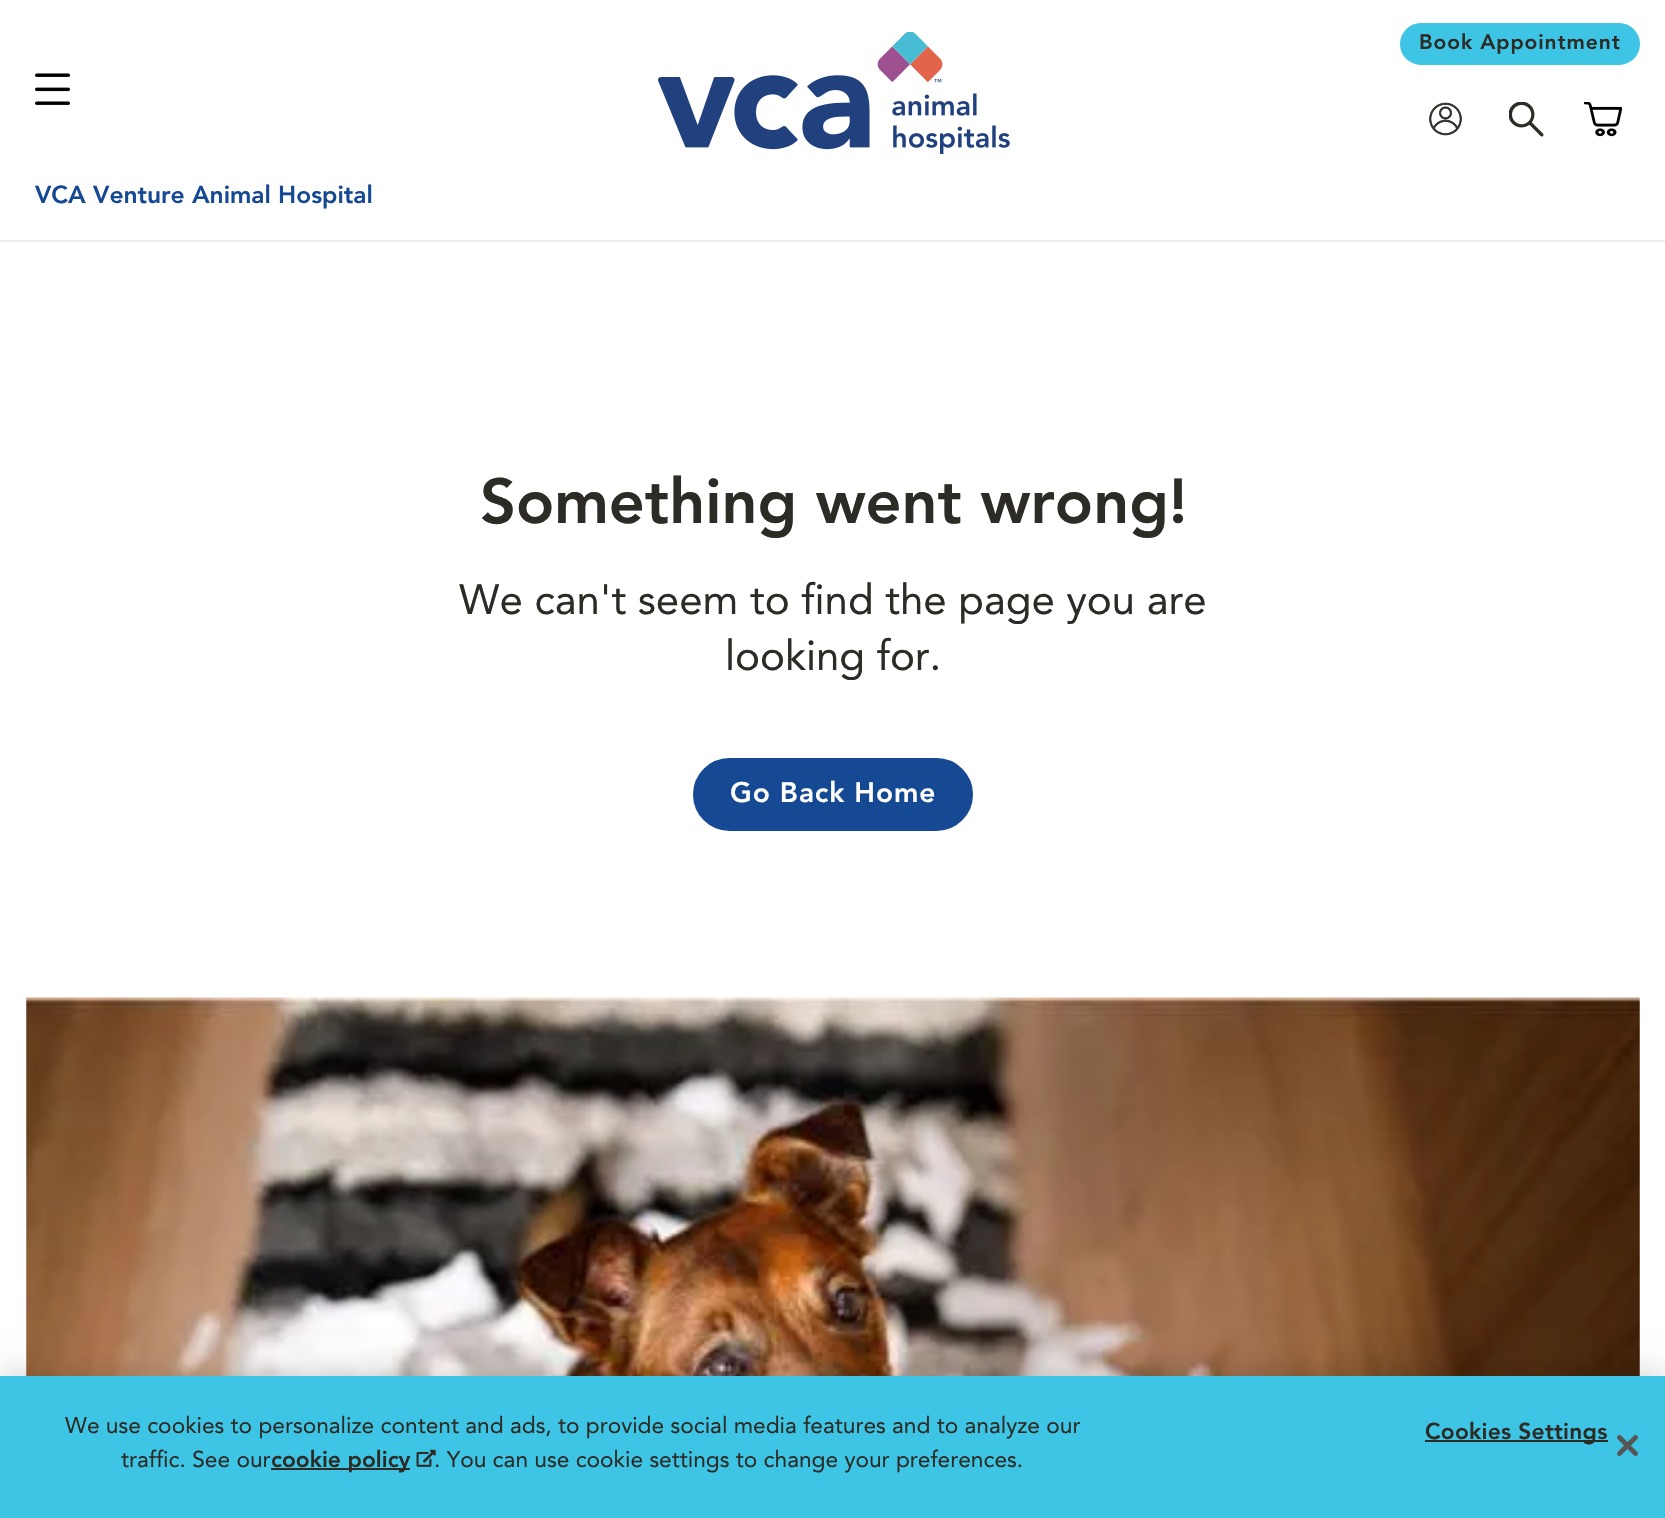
#include "include/core/SkBlurTypes.h"
#include "include/core/SkCanvas.h"
#include "include/core/SkData.h"
#include "include/core/SkFont.h"
#include "include/core/SkFontMgr.h"
#include "include/core/SkImage.h"
#include "include/core/SkMaskFilter.h"
#include "include/core/SkPaint.h"
#include "include/core/SkPathBuilder.h"
#include "include/core/SkTextBlob.h"
#include "include/effects/SkDashPathEffect.h"
#include "include/effects/SkGradientShader.h"
#include "include/utils/SkParsePath.h"

extern sk_sp<SkFontMgr> fontMgr;

static SkFont font(const char* family, int weight, float size, bool italic = false) {
    SkFontStyle style(weight, SkFontStyle::kNormal_Width,
        italic ? SkFontStyle::kItalic_Slant : SkFontStyle::kUpright_Slant);
    SkFont result(fontMgr->matchFamilyStyle(family, style), size);
    result.setSubpixel(true);
    return result;
}

static void drawLabel(SkCanvas* canvas, const char* s, float x, float y, const SkFont& font, SkColor color) {
    SkPaint ink(SkColor4f::FromColor(color));
    ink.setAntiAlias(true);
    canvas->drawString(s, x, y, font, ink);
}

static void drawTracked(SkCanvas* canvas, const char* s, float x, float y, const SkFont& font, const SkPaint& ink, float letter, float word) {
    std::vector<SkGlyphID> glyphs(font.countText(s, strlen(s), SkTextEncoding::kUTF8));
    std::vector<float> xs(glyphs.size());
    font.textToGlyphs(s, strlen(s), SkTextEncoding::kUTF8, glyphs);
    font.getXPos(glyphs, xs, x);
    float extra = 0;
    for (size_t i = 0; i < glyphs.size(); i++) {
        xs[i] += extra;
        extra += letter + word * (glyphs[i] == font.unicharToGlyph(' '));
    }
    canvas->drawTextBlob(SkTextBlob::MakeFromPosHGlyphs(glyphs, xs, y, font), 0, 0, ink);
}

static void fillRect(SkCanvas* canvas, float x, float y, float w, float h, SkColor color) {
    SkPaint ink(SkColor4f::FromColor(color));
    ink.setAntiAlias(true);
    canvas->drawRect(SkRect::MakeXYWH(x, y, w, h), ink);
}

static void drawPhoto(SkCanvas* canvas, const char* path, float x, float y, float w, float h) {
    auto image = SkImages::DeferredFromEncodedData(SkData::MakeFromFileName(path));
    canvas->drawImageRect(image, SkRect::MakeXYWH(x, y, w, h), SkSamplingOptions());
}

void draw(SkCanvas* canvas) {
    SkPaint paint;
    paint.setAntiAlias(true);
    canvas->clear(0xFFFFFFFF);
    fillRect(canvas, 0, 240, 1665, 2, 0xFFEDEDED);
    drawPhoto(canvas, "assets/img1.png", 658, 32, 352, 122);
    paint.setColor(0xFF3EC4E4);
    canvas->drawRoundRect(SkRect::MakeXYWH(1401, 24, 238, 40), 20, 20, paint);
    paint.setStroke(true);
    paint.setStrokeWidth(2);
    canvas->drawRoundRect(SkRect::MakeXYWH(1401, 24, 238, 40), 20, 20, paint);
    SkFont font1 = font("Avenir", 900, 21);
    paint.setStroke(false);
    paint.setColor(0xFF2D2B26);
    drawTracked(canvas, "Book Appointment", 1419, 49, font1, paint, 0.9f, 0);
    drawPhoto(canvas, "assets/img2.png", 1429, 102, 33, 34);
    drawPhoto(canvas, "assets/img3.png", 1509, 102, 35, 35);
    drawPhoto(canvas, "assets/img4.png", 1584, 102, 38, 35);
    drawPhoto(canvas, "assets/img5.png", 35, 73, 35, 32);
    SkFont font2 = font("Avenir", 900, 24.5f);
    drawLabel(canvas, "VCA Venture Animal Hospital", 35, 203, font2, 0xFF164994);
    SkFont font3 = font("Avenir", 900, 62.75f);
    drawLabel(canvas, "Something went wrong!", 480, 523, font3, 0xFF2D2B26);
    SkFont font4 = font("Avenir", 400, 42);
    drawLabel(canvas, "We can't seem to find the page you are", 459, 614, font4, 0xFF2D2B26);
    drawLabel(canvas, "looking for.", 725, 670, font4, 0xFF2D2B26);
    paint.setColor(0xFF164994);
    canvas->drawRoundRect(SkRect::MakeXYWH(694, 759, 278, 71), 35.5f, 35.5f, paint);
    paint.setStroke(true);
    canvas->drawRoundRect(SkRect::MakeXYWH(694, 759, 278, 71), 35.5f, 35.5f, paint);
    SkFont font5 = font("Avenir", 900, 28);
    paint.setStroke(false);
    paint.setColor(0xFFFFFFFF);
    drawTracked(canvas, "Go Back Home", 730, 802, font5, paint, 0.9f, 0);
    drawPhoto(canvas, "assets/img6.png", 26, 997, 1614, 379);
    paint.setColor(0x33000000);
    paint.setMaskFilter(SkMaskFilter::MakeBlur(kNormal_SkBlurStyle, 16));
    canvas->drawRect(SkRect::MakeXYWH(0, 1376, 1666, 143), paint);
    paint.setMaskFilter(nullptr);
    fillRect(canvas, 0, 1376, 1665, 142, 0xFF3EC4E4);
    SkFont font6 = font("Avenir", 400, 22.75f);
    drawLabel(canvas, "We use cookies to personalize content and ads, to provide social media features and to analyze our", 65, 1433, font6, 0xFF2D2B26);
    drawLabel(canvas, "traffic. See our", 121, 1467, font6, 0xFF2D2B26);
    fillRect(canvas, 271, 1468, 139, 2, 0xFF2D2B26);
    SkFont font7 = font("Avenir", 900, 22.75f);
    drawLabel(canvas, "cookie policy", 271, 1467, font7, 0xFF2D2B26);
    drawPhoto(canvas, "assets/img7.png", 416, 1449, 20, 18);
    drawLabel(canvas, ". You can use cookie settings to change your preferences.", 434, 1467, font6, 0xFF2D2B26);
    fillRect(canvas, 1425, 1440, 183, 2, 0xFF2D2B26);
    paint.setColor(0xFF2D2B26);
    drawTracked(canvas, "Cookies Settings", 1425, 1439, font7, paint, 0.25f, 0);
    drawPhoto(canvas, "assets/img8.png", 1617, 1435, 21, 21);
}
